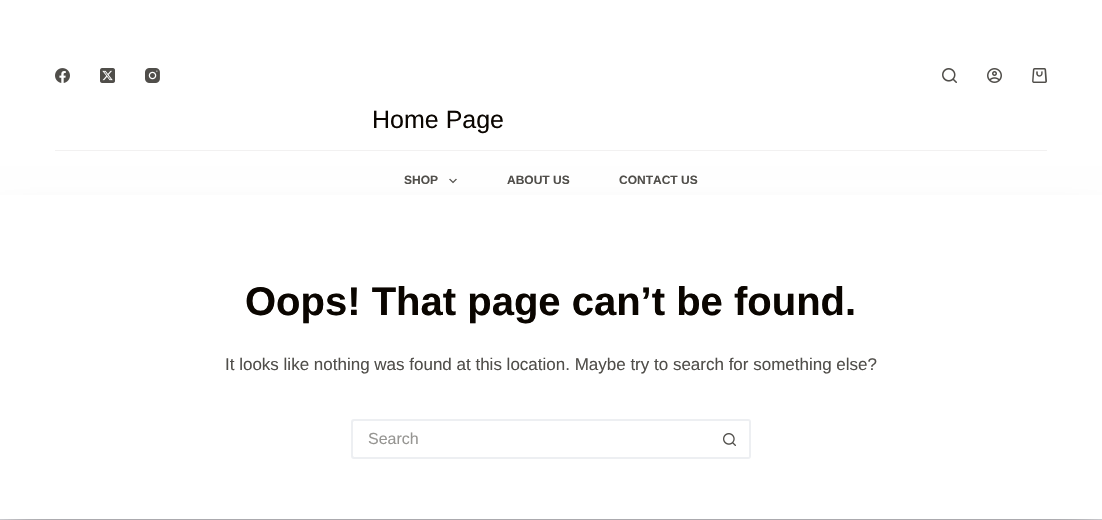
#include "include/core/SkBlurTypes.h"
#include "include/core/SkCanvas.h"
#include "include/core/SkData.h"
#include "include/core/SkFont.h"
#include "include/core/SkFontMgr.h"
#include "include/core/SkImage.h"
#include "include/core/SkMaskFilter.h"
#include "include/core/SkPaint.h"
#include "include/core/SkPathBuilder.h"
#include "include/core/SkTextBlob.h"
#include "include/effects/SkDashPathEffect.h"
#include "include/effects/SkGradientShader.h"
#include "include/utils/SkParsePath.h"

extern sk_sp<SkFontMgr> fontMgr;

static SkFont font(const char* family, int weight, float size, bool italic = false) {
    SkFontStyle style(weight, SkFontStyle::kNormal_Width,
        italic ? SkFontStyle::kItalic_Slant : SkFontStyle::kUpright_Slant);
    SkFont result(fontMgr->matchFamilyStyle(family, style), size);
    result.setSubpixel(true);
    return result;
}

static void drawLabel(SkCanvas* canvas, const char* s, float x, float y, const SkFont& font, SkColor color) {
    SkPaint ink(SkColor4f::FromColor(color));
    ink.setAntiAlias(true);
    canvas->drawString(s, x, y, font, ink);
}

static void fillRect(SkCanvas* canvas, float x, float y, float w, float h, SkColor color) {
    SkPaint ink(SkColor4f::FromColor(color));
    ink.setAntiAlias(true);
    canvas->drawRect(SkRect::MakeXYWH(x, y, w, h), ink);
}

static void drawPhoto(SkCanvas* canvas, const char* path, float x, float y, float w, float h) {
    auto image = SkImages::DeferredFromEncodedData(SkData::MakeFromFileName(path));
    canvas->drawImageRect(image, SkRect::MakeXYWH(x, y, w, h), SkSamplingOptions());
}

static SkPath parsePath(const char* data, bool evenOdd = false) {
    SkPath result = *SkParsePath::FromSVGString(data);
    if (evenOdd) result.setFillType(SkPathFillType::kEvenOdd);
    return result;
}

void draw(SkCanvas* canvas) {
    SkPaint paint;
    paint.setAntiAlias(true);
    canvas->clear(0xFFFFFFFF);
    drawPhoto(canvas, "assets/img1.png", 55, 68, 15, 15);
    drawPhoto(canvas, "assets/img2.png", 100, 68, 15, 15);
    drawPhoto(canvas, "assets/img3.png", 145, 68, 15, 15);
    drawPhoto(canvas, "assets/img4.png", 942, 68, 15, 15);
    drawPhoto(canvas, "assets/img5.png", 987, 68, 15, 15);
    drawPhoto(canvas, "assets/img6.png", 1032, 68, 15, 15);
    SkFont font1 = font("Liberation Sans", 400, 25);
    drawLabel(canvas, "Home Page", 372, 128, font1, 0xFF0A0500);
    fillRect(canvas, 55, 150, 992, 1, 0xFFF2F1F1);
    fillRect(canvas, 0, 519, 1102, 1, 0xFFE9E8ED);
    paint.setColor(0x4D000000);
    paint.setMaskFilter(SkMaskFilter::MakeBlur(kNormal_SkBlurStyle, 25));
    canvas->drawRect(SkRect::MakeXYWH(0, 241, 1102, 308), paint);
    paint.setMaskFilter(nullptr);
    SkFont font2 = font("Liberation Sans", 700, 12);
    drawLabel(canvas, "SHOP", 404, 184, font2, 0xFF504E4A);
    drawPhoto(canvas, "assets/img7.png", 449, 178, 8, 6);
    drawLabel(canvas, "ABOUT US", 507, 184, font2, 0xFF504E4A);
    drawLabel(canvas, "CONTACT US", 619, 184, font2, 0xFF504E4A);
    fillRect(canvas, 0, 195, 1102, 324, 0xFFFFFFFF);
    SkFont font3 = font("Liberation Sans", 700, 40);
    drawLabel(canvas, "Oops! That page can’t be found.", 245, 315, font3, 0xFF0A0500);
    SkFont font4 = font("Liberation Sans", 400, 17);
    drawLabel(canvas, "It looks like nothing was found at this location. Maybe try to search for something else?", 225, 370, font4, 0xFF504E4A);
    paint.setColor(0xFFEDEFF2);
    canvas->drawPath(parsePath("M354 419H711V459H354C352 459 351 458 351 456V422C351 420 352 419 354 419ZM354 421H711V457H354L353 456V422Z", true), paint);
    SkFont font5 = font("Liberation Sans", 400, 16);
    drawLabel(canvas, "Search", 368, 444, font5, 0xFF969592);
    canvas->drawPath(parsePath("M711 419H748C750 419 751 420 751 422V456C751 458 750 459 748 459H711ZM711 421H748C749 421 749 421 749 422V456C749 457 749 457 748 457H711Z", true), paint);
    drawPhoto(canvas, "assets/img8.png", 723, 433, 13, 13);
}
